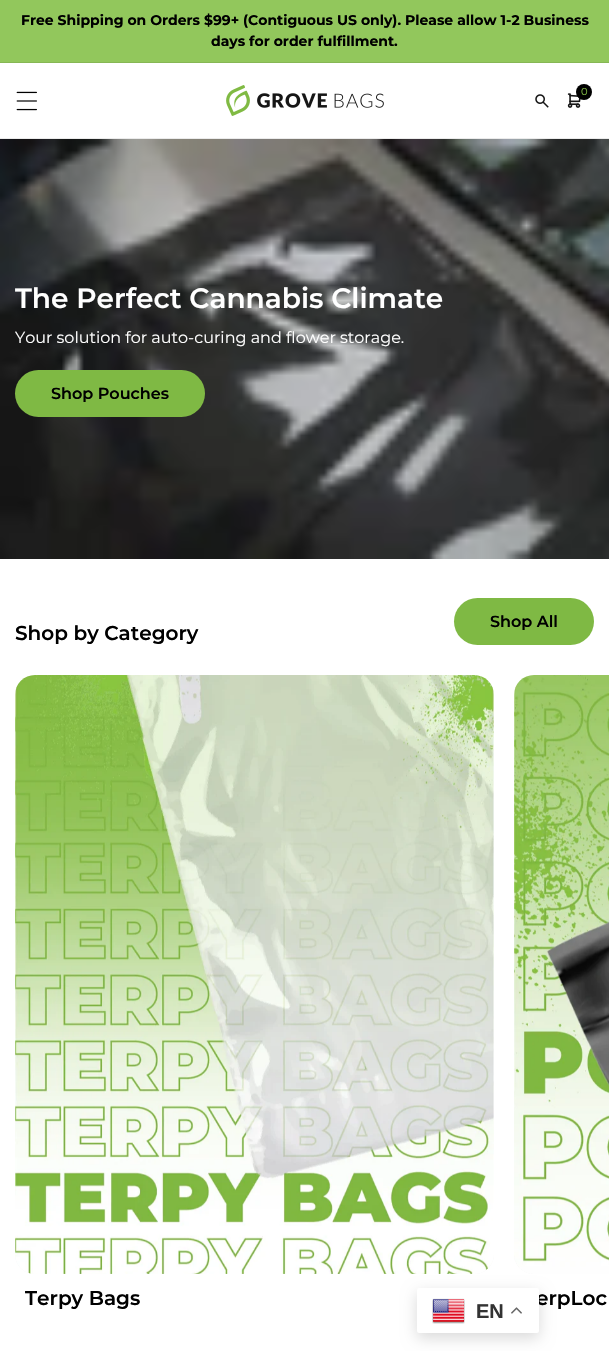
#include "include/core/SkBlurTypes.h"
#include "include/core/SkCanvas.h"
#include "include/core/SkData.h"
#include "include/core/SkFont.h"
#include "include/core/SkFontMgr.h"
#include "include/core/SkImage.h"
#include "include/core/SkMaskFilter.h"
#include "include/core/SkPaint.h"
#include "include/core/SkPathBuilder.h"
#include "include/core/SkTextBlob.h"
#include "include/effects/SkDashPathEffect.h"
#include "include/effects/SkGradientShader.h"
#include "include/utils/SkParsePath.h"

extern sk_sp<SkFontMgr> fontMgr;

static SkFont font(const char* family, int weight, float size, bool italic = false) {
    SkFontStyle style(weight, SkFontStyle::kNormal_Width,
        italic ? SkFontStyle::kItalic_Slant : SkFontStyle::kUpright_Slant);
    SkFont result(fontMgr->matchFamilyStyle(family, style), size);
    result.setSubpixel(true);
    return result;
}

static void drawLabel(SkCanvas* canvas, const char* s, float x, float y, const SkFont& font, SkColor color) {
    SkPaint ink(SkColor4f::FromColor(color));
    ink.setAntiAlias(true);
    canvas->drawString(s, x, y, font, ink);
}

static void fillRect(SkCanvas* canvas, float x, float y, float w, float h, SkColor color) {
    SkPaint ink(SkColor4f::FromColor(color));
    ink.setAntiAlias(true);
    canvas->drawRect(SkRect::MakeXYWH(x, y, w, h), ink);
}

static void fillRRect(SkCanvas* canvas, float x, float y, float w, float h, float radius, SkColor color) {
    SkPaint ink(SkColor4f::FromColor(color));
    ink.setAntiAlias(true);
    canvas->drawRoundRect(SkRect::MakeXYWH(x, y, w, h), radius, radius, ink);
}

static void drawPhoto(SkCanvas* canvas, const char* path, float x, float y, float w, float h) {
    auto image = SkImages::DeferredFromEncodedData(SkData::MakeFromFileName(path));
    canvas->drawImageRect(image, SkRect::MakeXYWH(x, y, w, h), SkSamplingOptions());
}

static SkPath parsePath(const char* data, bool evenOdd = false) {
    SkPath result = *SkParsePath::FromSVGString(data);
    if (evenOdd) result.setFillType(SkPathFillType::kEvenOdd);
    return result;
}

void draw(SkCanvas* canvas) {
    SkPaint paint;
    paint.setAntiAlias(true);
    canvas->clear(0xFFFFFFFF);
    fillRect(canvas, 0, 0, 609, 62, 0xFF92C75C);
    fillRect(canvas, 0, 62, 609, 1, 0xFF86B755);
    SkFont font1 = font("Montserrat", 700, 14);
    drawLabel(canvas, "Free Shipping on Orders $99+ (Contiguous US only). Please allow 1-2 Business", 21, 25, font1, 0xFF000000);
    drawLabel(canvas, "days for order fulfillment.", 211, 46, font1, 0xFF000000);
    fillRect(canvas, 0, 138, 609, 1, 0xFFEBEBEB);
    drawPhoto(canvas, "assets/img1.png", 16, 91, 21, 20);
    drawPhoto(canvas, "assets/img2.png", 226, 85, 158, 31);
    drawPhoto(canvas, "assets/img3.png", 567, 93, 14, 15);
    paint.setColor(0xFF000000);
    canvas->drawCircle(584, 92, 8, paint);
    SkFont font2 = font("Montserrat", 400, 10);
    drawLabel(canvas, "0", 581, 95, font2, 0xFF7FB944);
    drawPhoto(canvas, "assets/img4.png", 535, 94, 14, 14);
    drawPhoto(canvas, "assets/img5.png", 0, 139, 609, 420);
    SkFont font3 = font("Montserrat", 600, 28);
    drawLabel(canvas, "The Perfect Cannabis Climate", 15, 308, font3, 0xFFFFFFFF);
    SkFont font4 = font("Montserrat", 400, 16);
    drawLabel(canvas, "Your solution for auto-curing and flower storage.", 15, 343, font4, 0xFFFFFFFF);
    fillRRect(canvas, 15, 370, 190, 47, 23.5f, 0xFF7FB944);
    SkFont font5 = font("Montserrat", 600, 16);
    drawLabel(canvas, "Shop Pouches", 51, 399, font5, 0xFF000000);
    fillRRect(canvas, 454, 598, 140, 47, 23.5f, 0xFF7FB944);
    drawLabel(canvas, "Shop All", 490, 627, font5, 0xFF000000);
    SkFont font6 = font("Montserrat", 600, 20);
    drawLabel(canvas, "Shop by Category", 15, 640, font6, 0xFF000000);
    fillRRect(canvas, 15, 675, 479, 599, 20, 0xFFF6F6F6);
    drawPhoto(canvas, "assets/img6.png", 15, 675, 479, 599);
    drawLabel(canvas, "Terpy Bags", 25, 1305, font6, 0xFF000000);
    paint.setColor(0xFFF6F6F6);
    canvas->drawPath(parsePath("M534 675H609V1274H534C523 1274 514 1265 514 1254V695C514 684 523 675 534 675Z"), paint);
    drawPhoto(canvas, "assets/img7.png", 514, 675, 95, 599);
    drawLabel(canvas, "erpLoc", 536, 1305, font6, 0xFF000000);
    paint.setColor(0x26000000);
    paint.setMaskFilter(SkMaskFilter::MakeBlur(kNormal_SkBlurStyle, 7.5f));
    canvas->drawRoundRect(SkRect::MakeXYWH(417, 1293, 122, 45), 2, 2, paint);
    paint.setMaskFilter(nullptr);
    fillRRect(canvas, 417, 1288, 122, 45, 2, 0xFFFFFFFF);
    drawPhoto(canvas, "assets/img8.png", 432, 1298, 33, 26);
    SkFont font7 = font("Liberation Sans", 700, 20);
    drawLabel(canvas, "EN", 476, 1318, font7, 0xFF333333);
    drawPhoto(canvas, "assets/img9.png", 511, 1307, 11, 7);
}
